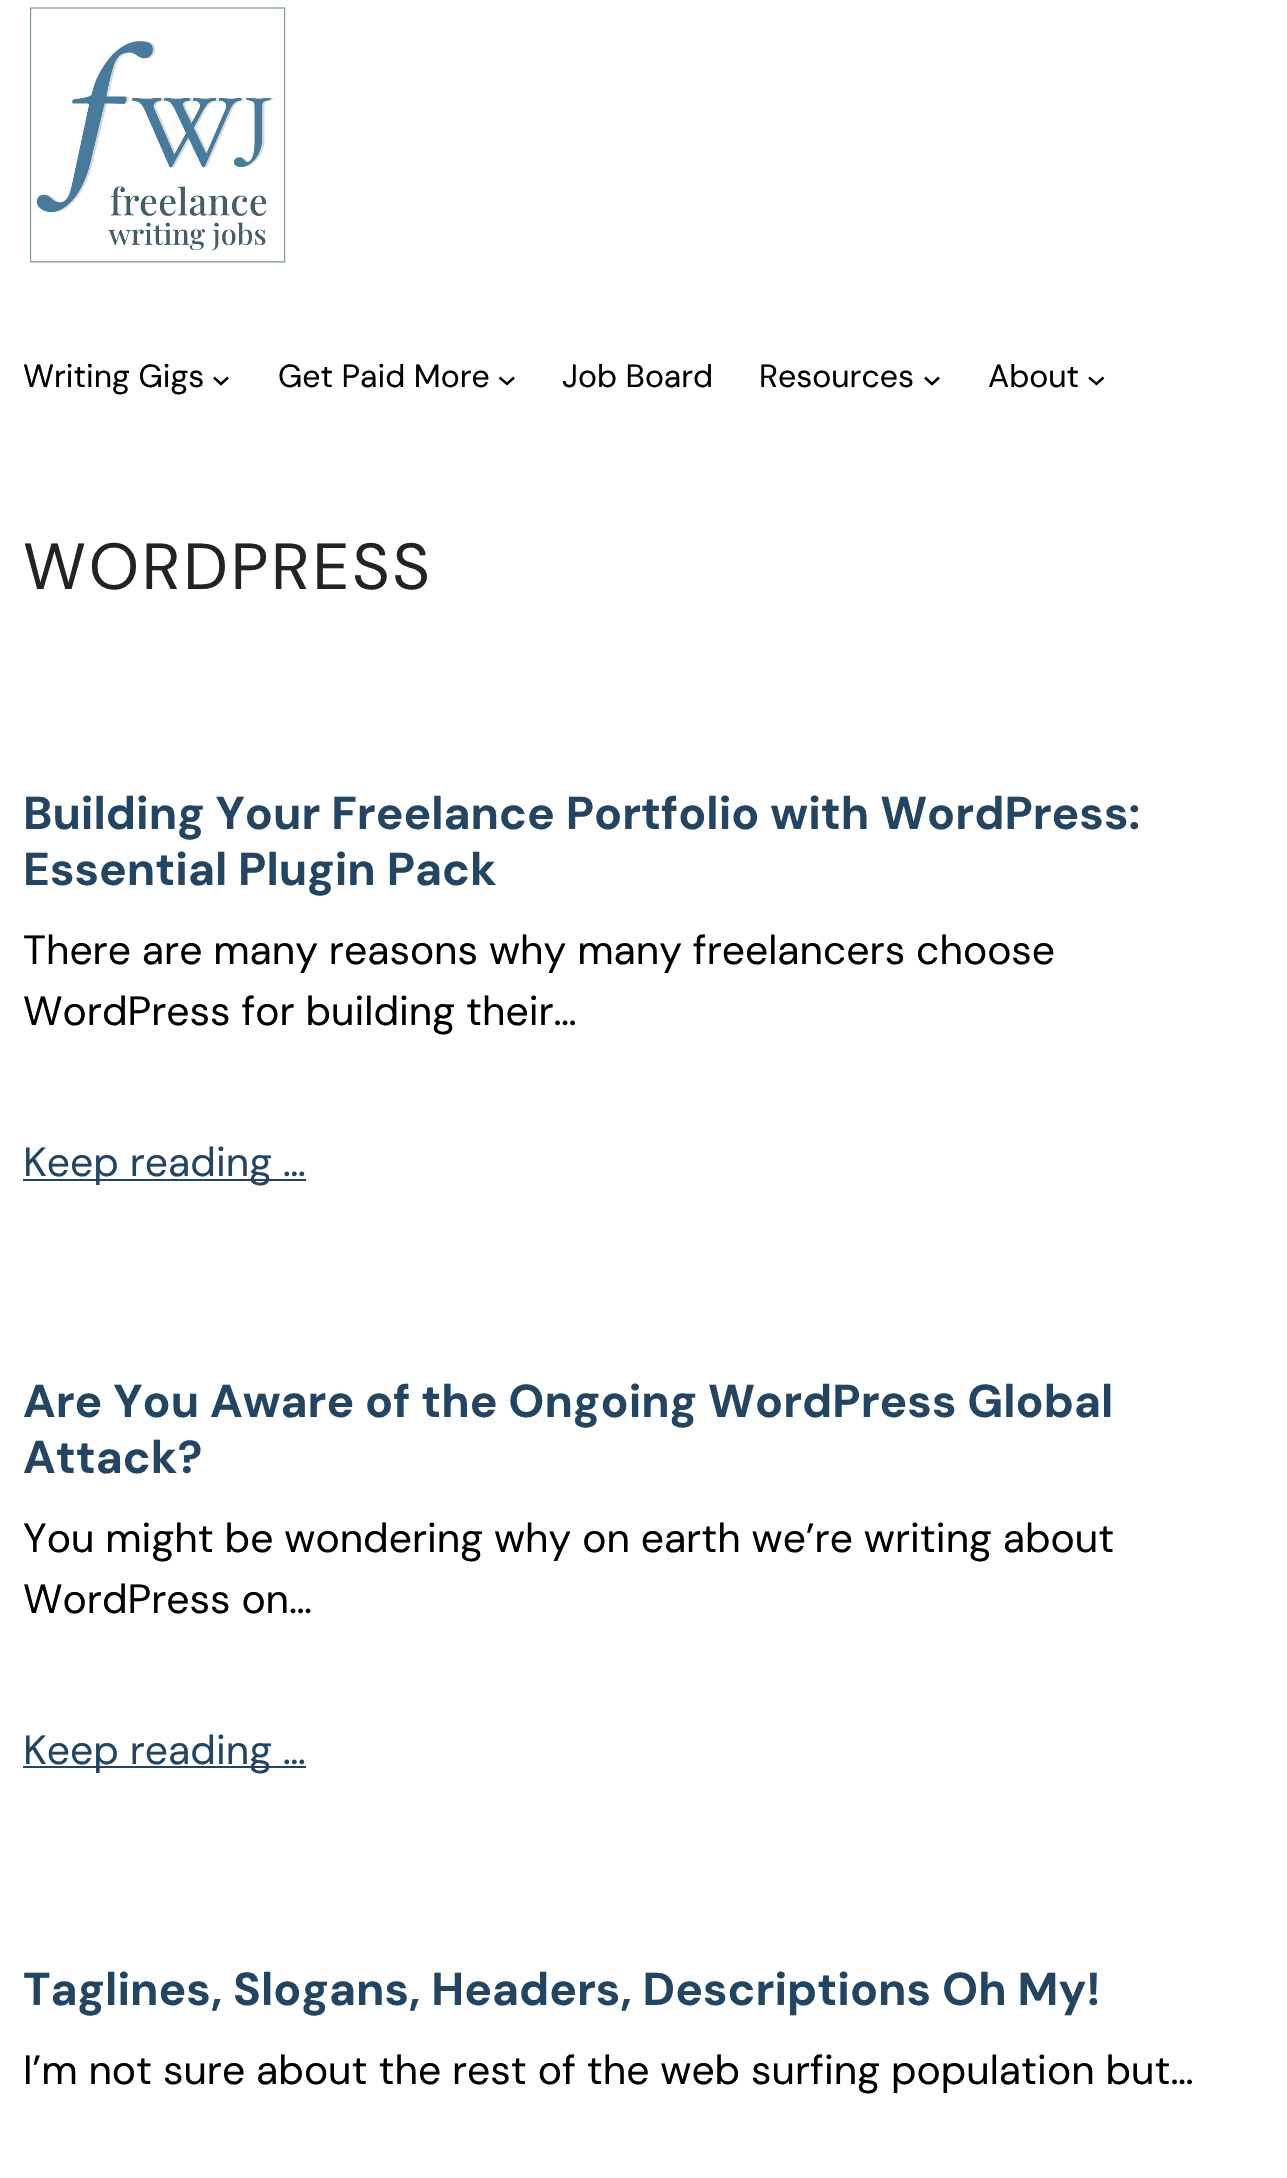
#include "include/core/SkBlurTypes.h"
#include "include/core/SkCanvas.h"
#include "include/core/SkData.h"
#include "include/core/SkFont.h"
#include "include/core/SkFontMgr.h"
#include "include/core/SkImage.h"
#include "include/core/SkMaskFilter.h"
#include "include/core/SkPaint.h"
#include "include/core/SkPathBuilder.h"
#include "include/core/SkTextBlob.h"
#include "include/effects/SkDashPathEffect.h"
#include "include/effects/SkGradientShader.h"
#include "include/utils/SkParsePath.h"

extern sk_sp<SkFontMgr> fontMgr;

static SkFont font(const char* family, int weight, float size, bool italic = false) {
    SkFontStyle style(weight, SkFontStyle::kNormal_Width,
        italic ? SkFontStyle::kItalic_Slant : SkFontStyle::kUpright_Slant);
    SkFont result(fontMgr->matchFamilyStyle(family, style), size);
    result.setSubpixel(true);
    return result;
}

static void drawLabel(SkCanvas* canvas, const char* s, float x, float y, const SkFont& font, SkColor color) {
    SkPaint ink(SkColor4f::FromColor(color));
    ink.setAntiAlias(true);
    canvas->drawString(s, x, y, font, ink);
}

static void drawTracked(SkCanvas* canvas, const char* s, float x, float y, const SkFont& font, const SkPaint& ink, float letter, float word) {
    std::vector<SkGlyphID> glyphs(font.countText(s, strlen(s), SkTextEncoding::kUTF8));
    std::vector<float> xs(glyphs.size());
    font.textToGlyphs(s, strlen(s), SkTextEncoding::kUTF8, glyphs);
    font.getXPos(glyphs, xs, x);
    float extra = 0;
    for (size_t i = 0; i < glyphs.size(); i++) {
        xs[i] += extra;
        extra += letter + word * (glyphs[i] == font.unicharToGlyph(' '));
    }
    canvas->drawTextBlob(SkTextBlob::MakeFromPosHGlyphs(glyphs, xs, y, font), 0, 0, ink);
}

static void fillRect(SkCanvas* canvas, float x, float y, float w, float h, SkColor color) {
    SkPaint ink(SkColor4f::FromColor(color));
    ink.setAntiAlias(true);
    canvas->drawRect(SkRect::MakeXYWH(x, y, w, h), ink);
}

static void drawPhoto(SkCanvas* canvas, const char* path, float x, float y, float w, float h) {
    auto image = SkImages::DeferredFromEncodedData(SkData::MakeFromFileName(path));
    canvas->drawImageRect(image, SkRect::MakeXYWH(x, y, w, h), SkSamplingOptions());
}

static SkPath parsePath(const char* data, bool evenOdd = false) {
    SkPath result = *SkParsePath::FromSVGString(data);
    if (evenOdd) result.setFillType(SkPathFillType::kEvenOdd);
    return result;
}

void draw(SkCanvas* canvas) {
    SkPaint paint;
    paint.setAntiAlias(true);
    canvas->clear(0xFFFFFFFF);
    drawPhoto(canvas, "assets/img1.png", 30, 7, 256, 256);
    SkFont font1 = font("DM Sans", 400, 32);
    drawLabel(canvas, "Writing Gigs", 23, 387, font1, 0xFF000000);
    paint.setStroke(true);
    paint.setStrokeWidth(2.4f);
    paint.setColor(0xFF000000);
    canvas->drawPath(parsePath("M214 377.5L221 384L228 377.5"), paint);
    drawLabel(canvas, "Get Paid More", 278, 387, font1, 0xFF000000);
    canvas->drawPath(parsePath("M499.5 377.5L507 384L514 377.5"), paint);
    drawLabel(canvas, "Job Board", 562, 387, font1, 0xFF000000);
    drawLabel(canvas, "Resources", 759, 387, font1, 0xFF000000);
    canvas->drawPath(parsePath("M925 377.5L932 384L939 377.5"), paint);
    drawLabel(canvas, "About", 988, 387, font1, 0xFF000000);
    canvas->drawPath(parsePath("M1089 377.5L1096.5 384L1103.5 377.5"), paint);
    SkFont font2 = font("DM Sans", 400, 65);
    paint.setStroke(false);
    paint.setColor(0xFF21251F);
    drawTracked(canvas, "WORDPRESS", 23, 589, font2, paint, 2.75f, 0);
    SkFont font3 = font("DM Sans", 700, 46.15f);
    drawLabel(canvas, "Building Your Freelance Portfolio with WordPress:", 23, 829, font3, 0xFF244561);
    drawLabel(canvas, "Essential Plugin Pack", 23, 885, font3, 0xFF244561);
    SkFont font4 = font("DM Sans", 400, 40.85f);
    drawLabel(canvas, "There are many reasons why many freelancers choose", 23, 964, font4, 0xFF000000);
    drawLabel(canvas, "WordPress for building their…", 23, 1025, font4, 0xFF000000);
    fillRect(canvas, 23, 1179, 283, 2, 0xFF244561);
    drawLabel(canvas, "Keep reading …", 23, 1176, font4, 0xFF244561);
    drawLabel(canvas, "Are You Aware of the Ongoing WordPress Global", 23, 1417, font3, 0xFF244561);
    drawLabel(canvas, "Attack?", 23, 1473, font3, 0xFF244561);
    drawLabel(canvas, "You might be wondering why on earth we’re writing about", 23, 1552, font4, 0xFF000000);
    drawLabel(canvas, "WordPress on…", 23, 1613, font4, 0xFF000000);
    fillRect(canvas, 23, 1766, 283, 2, 0xFF244561);
    drawLabel(canvas, "Keep reading …", 23, 1764, font4, 0xFF244561);
    drawLabel(canvas, "Taglines, Slogans, Headers, Descriptions Oh My!", 23, 2005, font3, 0xFF244561);
    drawLabel(canvas, "I’m not sure about the rest of the web surfing population but…", 23, 2084, font4, 0xFF000000);
}
